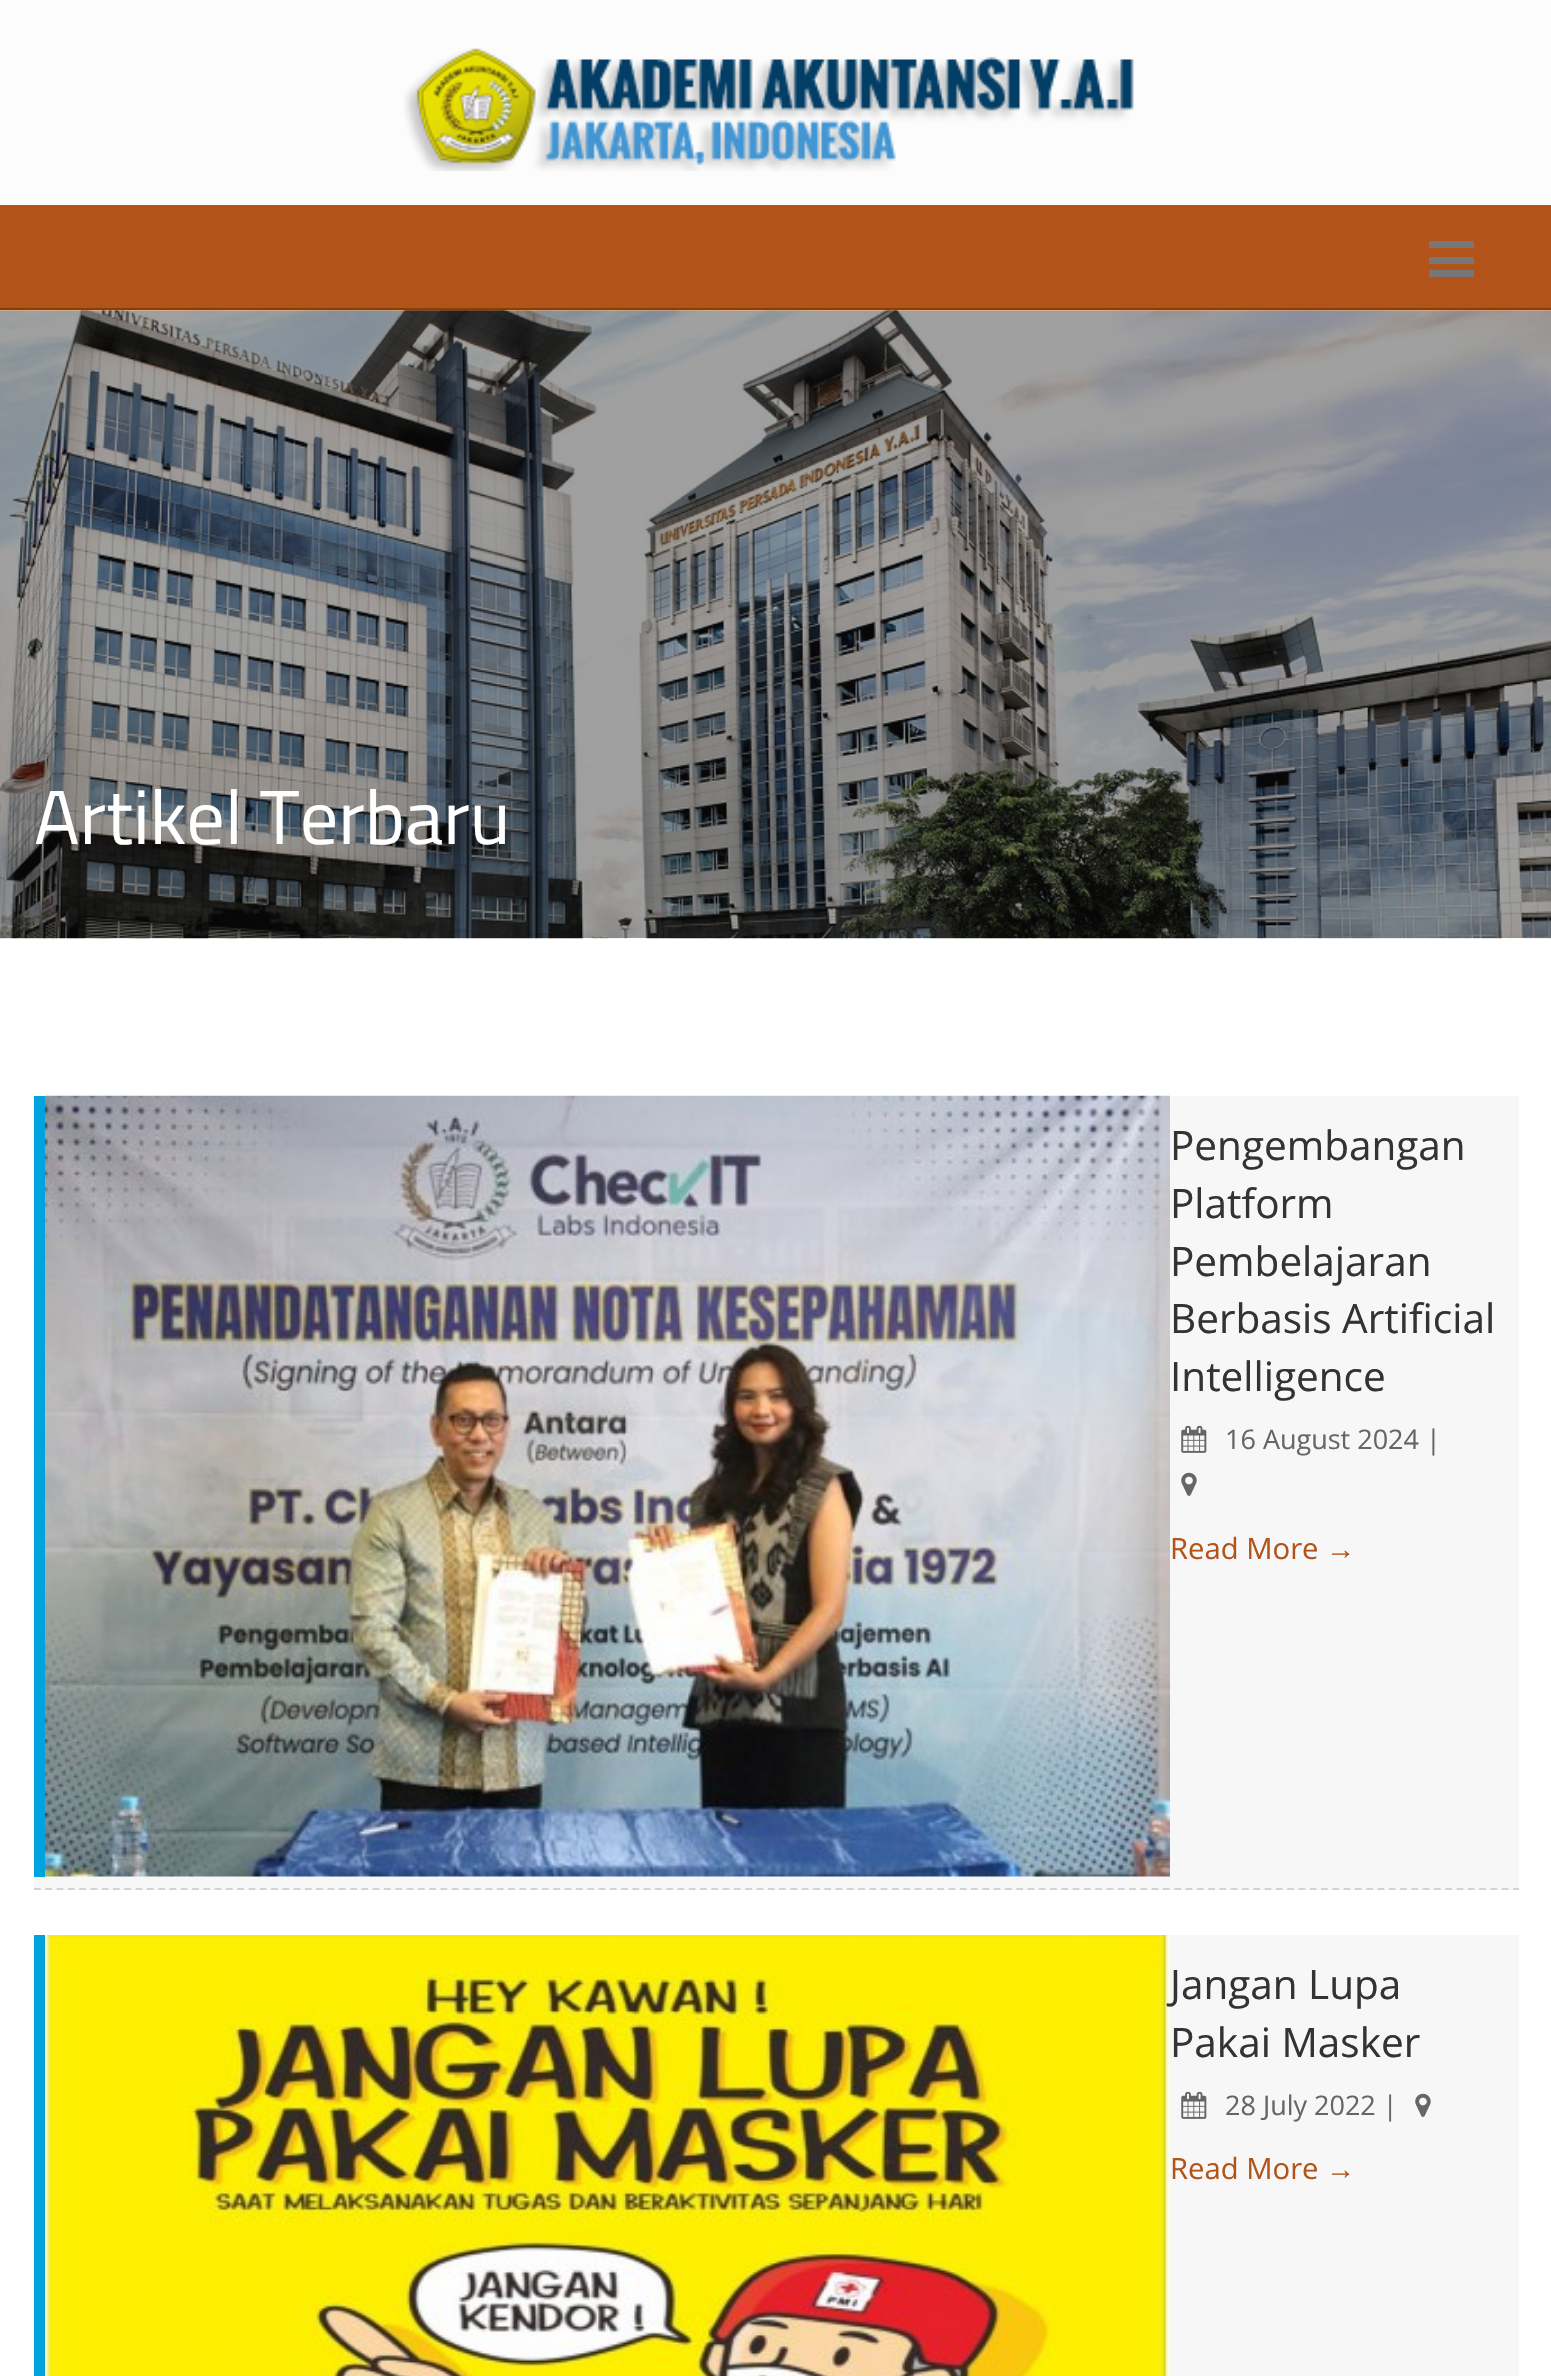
#include "include/core/SkBlurTypes.h"
#include "include/core/SkCanvas.h"
#include "include/core/SkData.h"
#include "include/core/SkFont.h"
#include "include/core/SkFontMgr.h"
#include "include/core/SkImage.h"
#include "include/core/SkMaskFilter.h"
#include "include/core/SkPaint.h"
#include "include/core/SkPathBuilder.h"
#include "include/core/SkTextBlob.h"
#include "include/effects/SkDashPathEffect.h"
#include "include/effects/SkGradientShader.h"
#include "include/utils/SkParsePath.h"

extern sk_sp<SkFontMgr> fontMgr;

static SkFont font(const char* family, int weight, float size, bool italic = false) {
    SkFontStyle style(weight, SkFontStyle::kNormal_Width,
        italic ? SkFontStyle::kItalic_Slant : SkFontStyle::kUpright_Slant);
    SkFont result(fontMgr->matchFamilyStyle(family, style), size);
    result.setSubpixel(true);
    return result;
}

static void drawLabel(SkCanvas* canvas, const char* s, float x, float y, const SkFont& font, SkColor color) {
    SkPaint ink(SkColor4f::FromColor(color));
    ink.setAntiAlias(true);
    canvas->drawString(s, x, y, font, ink);
}

static void fillRect(SkCanvas* canvas, float x, float y, float w, float h, SkColor color) {
    SkPaint ink(SkColor4f::FromColor(color));
    ink.setAntiAlias(true);
    canvas->drawRect(SkRect::MakeXYWH(x, y, w, h), ink);
}

static void drawPhoto(SkCanvas* canvas, const char* path, float x, float y, float w, float h) {
    auto image = SkImages::DeferredFromEncodedData(SkData::MakeFromFileName(path));
    canvas->drawImageRect(image, SkRect::MakeXYWH(x, y, w, h), SkSamplingOptions());
}

static SkPath parsePath(const char* data, bool evenOdd = false) {
    SkPath result = *SkParsePath::FromSVGString(data);
    if (evenOdd) result.setFillType(SkPathFillType::kEvenOdd);
    return result;
}

void draw(SkCanvas* canvas) {
    SkPaint paint;
    paint.setAntiAlias(true);
    canvas->clear(0xFFFFFFFF);
    fillRect(canvas, 0, 0, 1551, 205, 0xFFFCFCFC);
    drawPhoto(canvas, "assets/img1.png", 404, 48, 730, 123);
    fillRect(canvas, 0, 205, 1551, 106, 0xFFB2541A);
    fillRect(canvas, 0, 308, 1551, 2, 0xFF7F4307);
    fillRect(canvas, 1429, 241, 45, 7, 0xFF777777);
    fillRect(canvas, 1429, 257, 45, 7, 0xFF777777);
    fillRect(canvas, 1429, 270, 45, 7, 0xFF777777);
    drawPhoto(canvas, "assets/img2.png", 0, 310, 1551, 629);
    SkFont font1 = font("Titillium Web", 400, 76.5f);
    drawLabel(canvas, "Artikel Terbaru", 34, 844, font1, 0xFFFFFFFF);
    fillRect(canvas, 34, 1096, 1485, 794, 0xFFF7F7F7);
    paint.setStroke(true);
    paint.setStrokeWidth(2.2f);
    paint.setColor(0xFFD3D3D3);
    paint.setPathEffect(SkDashPathEffect::Make({{6.75f, 4.54f}}, 0));
    canvas->drawPath(parsePath("M34 1889H1519"), paint);
    paint.setPathEffect(nullptr);
    fillRect(canvas, 34, 1096, 11, 781, 0xFF01A3DE);
    drawPhoto(canvas, "assets/img3.png", 45, 1095, 1125, 782);
    SkFont font2 = font("Open Sans", 400, 40.5f);
    drawLabel(canvas, "Pengembangan", 1170, 1160, font2, 0xFF333333);
    drawLabel(canvas, "Platform", 1170, 1218, font2, 0xFF333333);
    drawLabel(canvas, "Pembelajaran", 1170, 1276, font2, 0xFF333333);
    drawLabel(canvas, "Berbasis Artificial", 1170, 1333, font2, 0xFF333333);
    drawLabel(canvas, "Intelligence", 1170, 1391, font2, 0xFF333333);
    drawPhoto(canvas, "assets/img4.png", 1181, 1425, 26, 28);
    SkFont font3 = font("Open Sans", 400, 27);
    drawLabel(canvas, "16 August 2024 |", 1225, 1449, font3, 0xFF666666);
    drawPhoto(canvas, "assets/img5.png", 1181, 1472, 16, 24);
    SkFont font4 = font("Open Sans", 400, 29.25f);
    drawLabel(canvas, "Read More", 1170, 1559, font4, 0xFFB2541A);
    SkFont font5 = font("Liberation Sans", 400, 29.25f);
    drawLabel(canvas, "→", 1326, 1559, font5, 0xFFB2541A);
    fillRect(canvas, 1170, 1935, 349, 441, 0xFFF7F7F7);
    fillRect(canvas, 34, 1935, 11, 441, 0xFF01A3DE);
    drawPhoto(canvas, "assets/img6.png", 45, 1935, 1125, 441);
    drawLabel(canvas, "Jangan Lupa", 1170, 1999, font2, 0xFF333333);
    drawLabel(canvas, "Pakai Masker", 1170, 2057, font2, 0xFF333333);
    drawPhoto(canvas, "assets/img4.png", 1181, 2091, 26, 28);
    drawLabel(canvas, "28 July 2022 |", 1225, 2115, font3, 0xFF666666);
    drawPhoto(canvas, "assets/img5.png", 1415, 2093, 16, 24);
    drawLabel(canvas, "Read More", 1170, 2179, font4, 0xFFB2541A);
    drawLabel(canvas, "→", 1326, 2179, font5, 0xFFB2541A);
}
